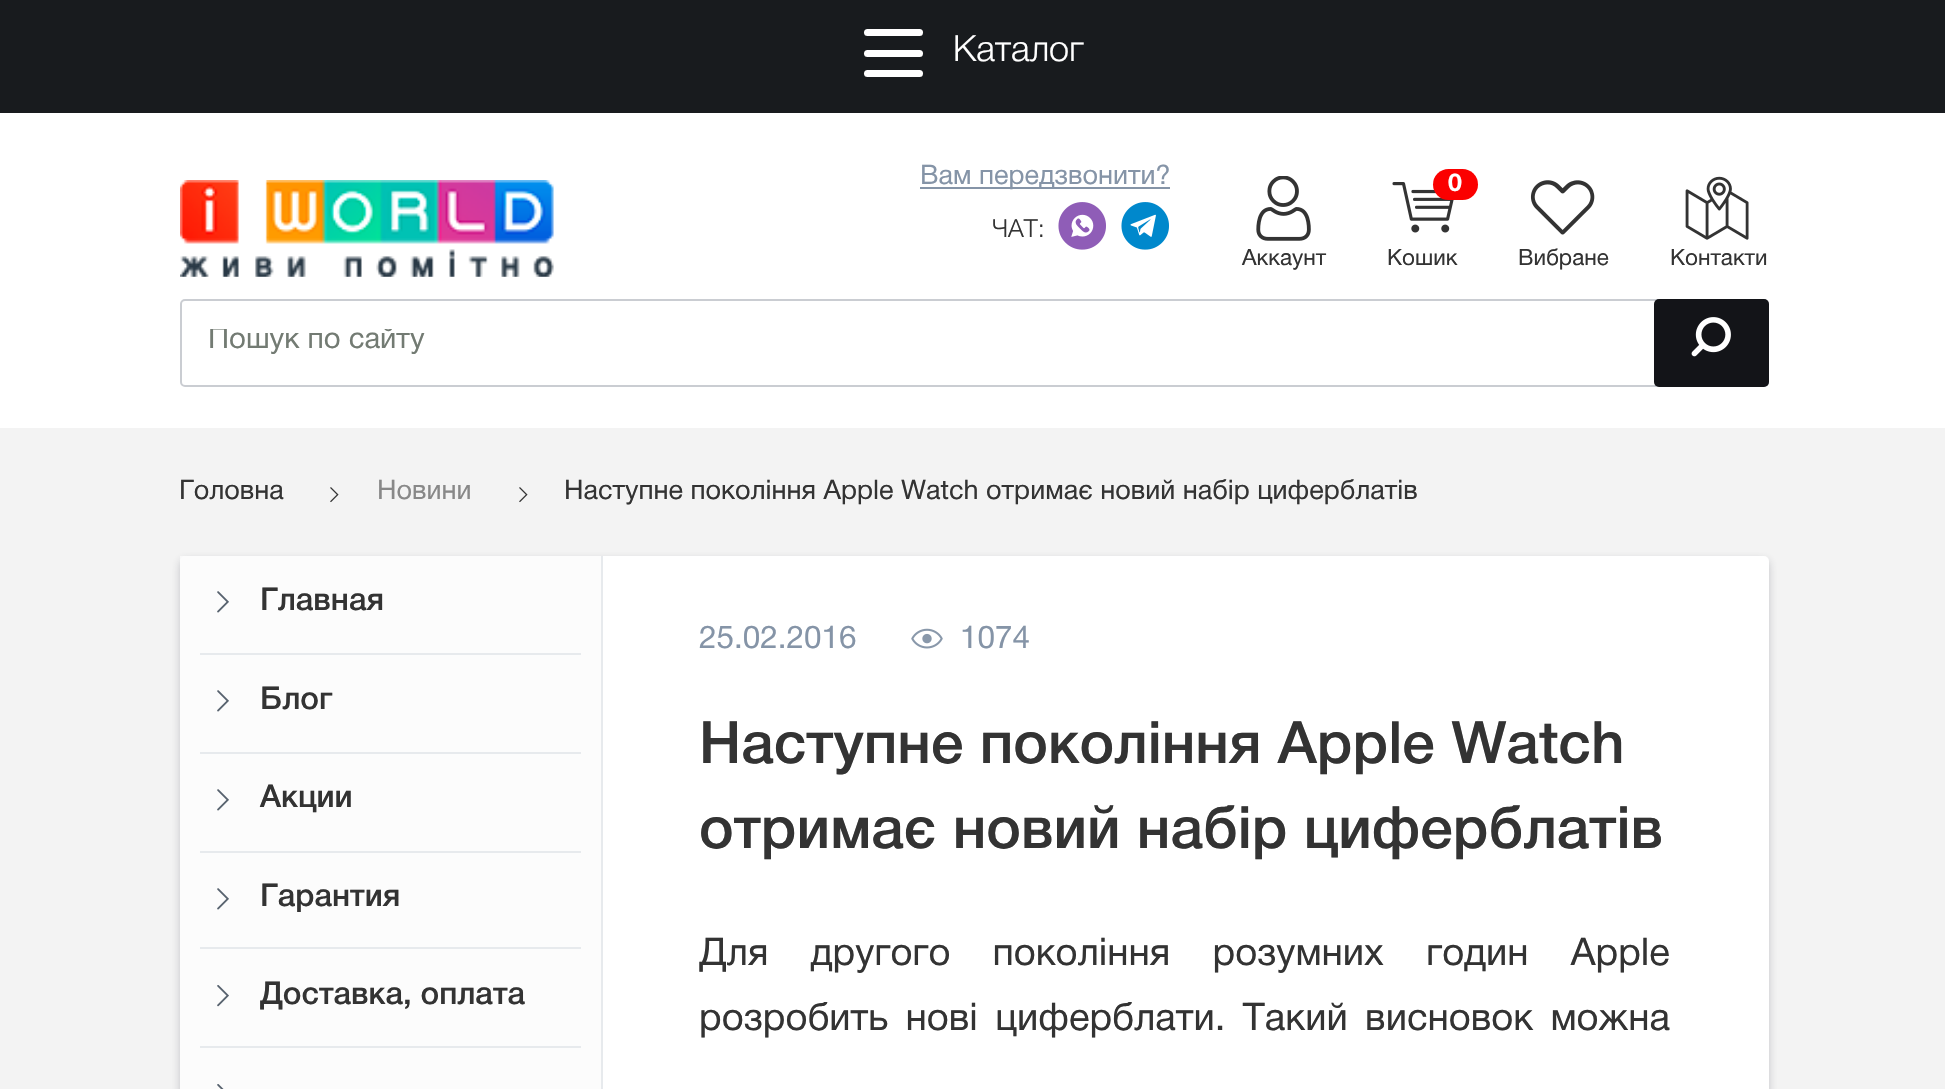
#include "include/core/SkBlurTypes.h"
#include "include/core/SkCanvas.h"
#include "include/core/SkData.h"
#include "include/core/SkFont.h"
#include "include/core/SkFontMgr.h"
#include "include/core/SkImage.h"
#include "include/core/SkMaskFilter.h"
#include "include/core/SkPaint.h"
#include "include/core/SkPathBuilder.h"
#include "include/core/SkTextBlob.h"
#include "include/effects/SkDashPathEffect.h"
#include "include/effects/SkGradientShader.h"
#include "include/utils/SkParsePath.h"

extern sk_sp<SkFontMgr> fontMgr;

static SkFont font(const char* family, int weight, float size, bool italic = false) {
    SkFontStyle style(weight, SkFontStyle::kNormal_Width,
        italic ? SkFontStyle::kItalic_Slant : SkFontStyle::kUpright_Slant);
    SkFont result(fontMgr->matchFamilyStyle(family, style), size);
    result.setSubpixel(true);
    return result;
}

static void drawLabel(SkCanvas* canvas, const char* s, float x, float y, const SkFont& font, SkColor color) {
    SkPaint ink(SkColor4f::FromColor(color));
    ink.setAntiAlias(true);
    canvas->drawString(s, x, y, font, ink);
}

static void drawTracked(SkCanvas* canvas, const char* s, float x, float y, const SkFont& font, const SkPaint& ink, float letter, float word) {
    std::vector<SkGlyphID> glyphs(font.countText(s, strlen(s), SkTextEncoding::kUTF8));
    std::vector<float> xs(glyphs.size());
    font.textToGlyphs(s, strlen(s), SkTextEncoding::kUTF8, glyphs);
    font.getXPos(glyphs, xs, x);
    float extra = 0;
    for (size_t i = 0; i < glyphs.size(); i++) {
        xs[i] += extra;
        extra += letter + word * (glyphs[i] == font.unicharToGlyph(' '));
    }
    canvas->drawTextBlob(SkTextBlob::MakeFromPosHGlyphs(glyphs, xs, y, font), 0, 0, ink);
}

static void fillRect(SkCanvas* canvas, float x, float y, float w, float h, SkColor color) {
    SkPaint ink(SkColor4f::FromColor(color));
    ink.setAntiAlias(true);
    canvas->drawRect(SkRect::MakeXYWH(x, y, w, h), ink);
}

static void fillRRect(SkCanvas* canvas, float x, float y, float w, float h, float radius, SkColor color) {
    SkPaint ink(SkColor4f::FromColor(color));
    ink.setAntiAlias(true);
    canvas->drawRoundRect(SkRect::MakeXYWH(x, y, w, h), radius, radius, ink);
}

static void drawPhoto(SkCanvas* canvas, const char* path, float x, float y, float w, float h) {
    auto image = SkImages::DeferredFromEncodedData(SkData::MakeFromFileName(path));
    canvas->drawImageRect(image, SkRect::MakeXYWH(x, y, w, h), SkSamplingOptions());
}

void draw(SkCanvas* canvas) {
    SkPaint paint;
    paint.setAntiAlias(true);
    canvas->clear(0xFFF3F3F3);
    fillRect(canvas, 0, 113, 1945, 315, 0xFFFFFFFF);
    fillRect(canvas, 0, 0, 1945, 113, 0xFF181B1E);
    fillRRect(canvas, 864, 70, 59, 7, 3.5f, 0xFFFFFFFF);
    fillRRect(canvas, 864, 29, 59, 7, 3.5f, 0xFFFFFFFF);
    fillRRect(canvas, 864, 50, 59, 7, 3.5f, 0xFFFFFFFF);
    SkFont font1 = font("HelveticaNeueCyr", 300, 36);
    drawLabel(canvas, "Каталог", 953, 61, font1, 0xFFFFFFFF);
    drawPhoto(canvas, "assets/img1.png", 180, 180, 374, 97);
    fillRect(canvas, 920, 187, 250, 2, 0xFF8594A7);
    SkFont font2 = font("HelveticaNeueCyr", 400, 27);
    drawLabel(canvas, "Вам передзвонити?", 920, 184, font2, 0xFF8594A7);
    SkFont font3 = font("HelveticaNeueCyr", 300, 25);
    drawLabel(canvas, "ЧАТ:", 992, 237, font3, 0xFF333333);
    drawPhoto(canvas, "assets/img2.png", 1058, 202, 48, 48);
    drawPhoto(canvas, "assets/img3.png", 1121, 202, 48, 48);
    drawPhoto(canvas, "assets/img4.png", 1256, 176, 55, 65);
    SkFont font4 = font("HelveticaNeueCyr", 400, 22.5f);
    drawLabel(canvas, "Аккаунт", 1242, 265, font4, 0xFF333333);
    drawPhoto(canvas, "assets/img5.png", 1392, 182, 62, 51);
    fillRRect(canvas, 1433, 169, 45, 31, 15.5f, 0xFFFB0000);
    SkFont font5 = font("HelveticaNeueCyr", 700, 25);
    drawLabel(canvas, "0", 1448, 191, font5, 0xFFFFFFFF);
    drawLabel(canvas, "Кошик", 1387, 265, font4, 0xFF333333);
    drawPhoto(canvas, "assets/img6.png", 1530, 180, 65, 55);
    drawLabel(canvas, "Вибране", 1518, 265, font4, 0xFF333333);
    drawPhoto(canvas, "assets/img7.png", 1685, 176, 64, 64);
    drawLabel(canvas, "Контакти", 1670, 265, font4, 0xFF333333);
    paint.setStroke(true);
    paint.setStrokeWidth(2);
    paint.setColor(0xFFCACDD2);
    canvas->drawRoundRect(SkRect::MakeXYWH(181, 300, 1587, 86), 4, 4, paint);
    canvas->save();
    canvas->clipRect(SkRect::MakeXYWH(209, 329, 1420, 29));
    SkFont font6 = font("HelveticaNeueCyr", 400, 29.25f);
    drawLabel(canvas, "Пошук по сайту", 208, 348, font6, 0xFF737B73);
    canvas->restore();
    fillRRect(canvas, 1654, 299, 115, 88, 5, 0xFF131418);
    drawPhoto(canvas, "assets/img8.png", 1691, 317, 40, 40);
    drawLabel(canvas, "Головна", 179, 499, font2, 0xFF333333);
    drawPhoto(canvas, "assets/img9.png", 330, 487, 9, 16);
    drawLabel(canvas, "Новини", 377, 499, font2, 0xFF888888);
    drawPhoto(canvas, "assets/img9.png", 519, 487, 9, 16);
    drawLabel(canvas, "Наступне покоління Apple Watch отримає новий набір циферблатів", 564, 499, font2, 0xFF333333);
    paint.setStroke(false);
    paint.setColor(0x402F3544);
    paint.setMaskFilter(SkMaskFilter::MakeBlur(kNormal_SkBlurStyle, 4.5f));
    canvas->drawRoundRect(SkRect::MakeXYWH(180, 560, 1589, 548), 5, 5, paint);
    paint.setMaskFilter(nullptr);
    fillRRect(canvas, 180, 556, 1589, 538, 5, 0xFFFFFFFF);
    fillRect(canvas, 180, 556, 421, 533, 0xCCFBFBFB);
    fillRect(canvas, 601, 556, 2, 533, 0xFFE7EAED);
    fillRect(canvas, 200, 653, 381, 2, 0xFFE7EAED);
    drawPhoto(canvas, "assets/img10.png", 217, 591, 12, 22);
    SkFont font7 = font("HelveticaNeueCyr", 500, 31.5f);
    drawLabel(canvas, "Главная", 260, 610, font7, 0xFF333333);
    fillRect(canvas, 200, 752, 381, 2, 0xFFE7EAED);
    drawPhoto(canvas, "assets/img10.png", 217, 690, 12, 22);
    drawLabel(canvas, "Блог", 260, 709, font7, 0xFF333333);
    fillRect(canvas, 200, 851, 381, 2, 0xFFE7EAED);
    drawPhoto(canvas, "assets/img10.png", 217, 789, 12, 22);
    drawLabel(canvas, "Акции", 260, 807, font7, 0xFF333333);
    fillRect(canvas, 200, 947, 381, 2, 0xFFE7EAED);
    drawPhoto(canvas, "assets/img10.png", 217, 888, 12, 22);
    drawLabel(canvas, "Гарантия", 260, 906, font7, 0xFF333333);
    fillRect(canvas, 200, 1046, 381, 2, 0xFFE7EAED);
    drawPhoto(canvas, "assets/img11.png", 217, 985, 12, 22);
    drawLabel(canvas, "Доставка, оплата", 260, 1004, font7, 0xFF333333);
    drawPhoto(canvas, "assets/img12.png", 217, 1084, 7, 5);
    SkFont font8 = font("HelveticaNeueCyr", 400, 31.5f);
    drawLabel(canvas, "25.02.2016", 699, 648, font8, 0xFF8594A7);
    drawPhoto(canvas, "assets/img13.png", 911, 628, 32, 21);
    drawLabel(canvas, "1074", 960, 648, font8, 0xFF8594A7);
    SkFont font9 = font("HelveticaNeueCyr", 500, 58.5f);
    drawLabel(canvas, "Наступне покоління Apple Watch", 699, 763, font9, 0xFF333333);
    drawLabel(canvas, "отримає новий набір циферблатів", 699, 848, font9, 0xFF333333);
    SkFont font10 = font("HelveticaNeueCyr", 400, 38.25f);
    paint.setColor(0xFF333333);
    drawTracked(canvas, "Для другого покоління розумних годин Apple", 699, 965, font10, paint, 0, 31.5f);
    drawTracked(canvas, "розробить нові циферблати. Такий висновок можна", 699, 1030, font10, paint, 0, 6.75f);
}
